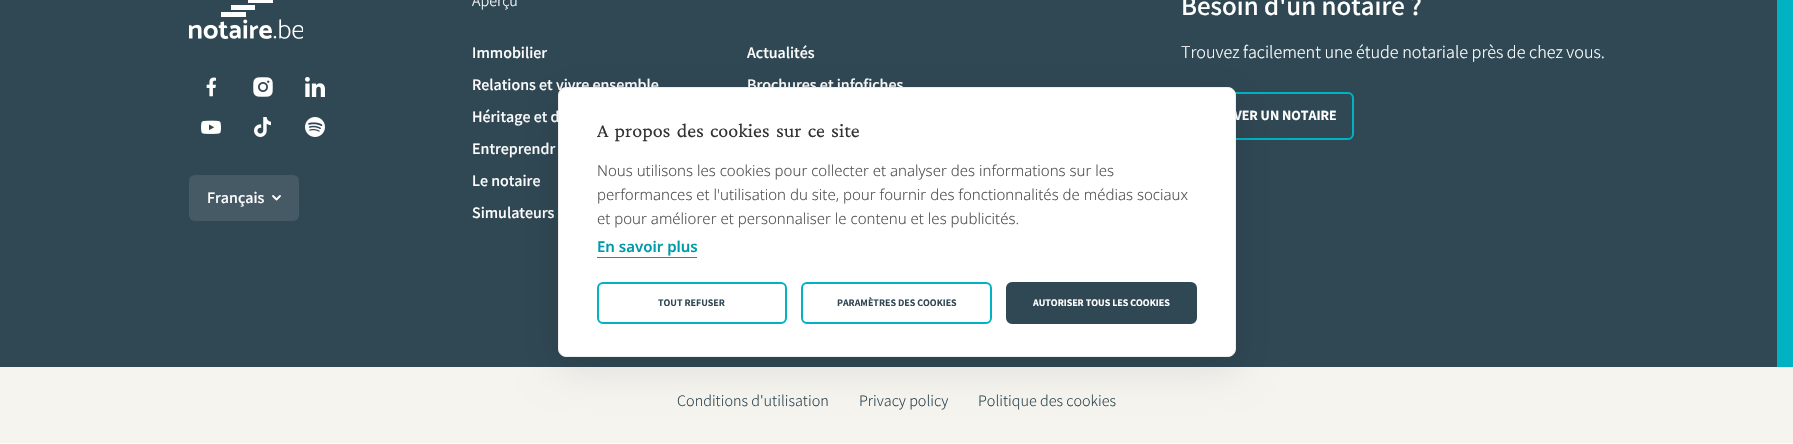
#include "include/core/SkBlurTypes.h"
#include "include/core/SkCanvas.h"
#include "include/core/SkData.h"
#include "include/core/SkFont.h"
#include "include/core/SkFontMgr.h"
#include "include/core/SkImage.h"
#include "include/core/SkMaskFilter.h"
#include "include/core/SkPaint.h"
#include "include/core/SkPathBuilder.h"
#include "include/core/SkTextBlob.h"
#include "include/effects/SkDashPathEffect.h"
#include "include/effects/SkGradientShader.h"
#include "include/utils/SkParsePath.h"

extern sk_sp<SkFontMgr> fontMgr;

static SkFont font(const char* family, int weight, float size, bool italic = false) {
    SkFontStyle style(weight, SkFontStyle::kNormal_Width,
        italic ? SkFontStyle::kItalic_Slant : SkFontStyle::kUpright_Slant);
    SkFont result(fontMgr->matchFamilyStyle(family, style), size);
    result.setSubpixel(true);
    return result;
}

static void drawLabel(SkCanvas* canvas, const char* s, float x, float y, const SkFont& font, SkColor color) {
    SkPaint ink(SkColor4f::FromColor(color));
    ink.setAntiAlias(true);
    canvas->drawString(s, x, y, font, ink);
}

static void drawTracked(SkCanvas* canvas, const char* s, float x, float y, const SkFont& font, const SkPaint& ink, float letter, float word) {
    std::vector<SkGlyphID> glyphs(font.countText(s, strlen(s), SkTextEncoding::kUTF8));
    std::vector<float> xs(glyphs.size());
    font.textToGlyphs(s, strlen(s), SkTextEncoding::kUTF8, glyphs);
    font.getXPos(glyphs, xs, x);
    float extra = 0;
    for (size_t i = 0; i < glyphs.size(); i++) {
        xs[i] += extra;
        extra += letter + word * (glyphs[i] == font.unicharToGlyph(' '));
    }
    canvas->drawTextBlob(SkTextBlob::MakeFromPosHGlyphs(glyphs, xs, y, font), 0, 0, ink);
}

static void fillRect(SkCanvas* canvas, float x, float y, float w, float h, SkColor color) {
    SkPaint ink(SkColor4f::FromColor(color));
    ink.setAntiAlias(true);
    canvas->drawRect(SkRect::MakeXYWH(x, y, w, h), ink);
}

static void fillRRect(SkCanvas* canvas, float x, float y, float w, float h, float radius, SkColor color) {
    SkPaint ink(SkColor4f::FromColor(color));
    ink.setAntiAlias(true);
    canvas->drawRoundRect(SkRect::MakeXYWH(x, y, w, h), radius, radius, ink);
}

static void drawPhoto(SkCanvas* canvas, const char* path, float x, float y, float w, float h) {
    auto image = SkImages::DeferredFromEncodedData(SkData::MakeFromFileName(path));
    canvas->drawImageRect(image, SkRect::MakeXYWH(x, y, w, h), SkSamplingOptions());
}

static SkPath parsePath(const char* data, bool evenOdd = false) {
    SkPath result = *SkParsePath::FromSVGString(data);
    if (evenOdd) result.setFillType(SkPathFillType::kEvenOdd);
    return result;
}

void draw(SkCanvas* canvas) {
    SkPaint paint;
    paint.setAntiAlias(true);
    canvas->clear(0xFFFFFFFF);
    fillRect(canvas, 0, 367, 1793, 76, 0xFFF6F4EF);
    fillRect(canvas, 0, 0, 1777, 367, 0xFF304854);
    paint.setColor(0xFF00B2C2);
    canvas->drawPath(parsePath("M1777 367H1793V-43C1793-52 1790-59 1784-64L1773-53C1776-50 1777-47 1777-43Z"), paint);
    SkFont font1 = font("Assistant", 300, 16);
    drawLabel(canvas, "Aperçu", 472, 6, font1, 0xFFFFFFFF);
    SkFont font2 = font("Assistant", 600, 16);
    drawLabel(canvas, "Immobilier", 472, 58, font2, 0xFFFFFFFF);
    drawLabel(canvas, "Relations et vivre ensemble", 472, 90, font2, 0xFFFFFFFF);
    drawLabel(canvas, "Héritage et d", 472, 122, font2, 0xFFFFFFFF);
    drawLabel(canvas, "Entreprendr", 472, 154, font2, 0xFFFFFFFF);
    drawLabel(canvas, "Le notaire", 472, 186, font2, 0xFFFFFFFF);
    drawLabel(canvas, "Simulateurs", 472, 218, font2, 0xFFFFFFFF);
    drawLabel(canvas, "Actualités", 747, 58, font2, 0xFFFFFFFF);
    drawLabel(canvas, "Brochures et infofiches", 747, 90, font2, 0xFFFFFFFF);
    SkFont font3 = font("Assistant", 600, 27);
    drawLabel(canvas, "Besoin d'un notaire ?", 1181, 15, font3, 0xFFFFFFFF);
    SkFont font4 = font("Assistant", 300, 18);
    drawLabel(canvas, "Trouvez facilement une étude notariale près de chez vous.", 1181, 58, font4, 0xFFFFFFFF);
    paint.setStroke(true);
    paint.setStrokeWidth(2);
    canvas->drawRoundRect(SkRect::MakeXYWH(1182, 93, 171, 46), 5, 5, paint);
    SkFont font5 = font("Assistant", 700, 14);
    drawLabel(canvas, "VER UN NOTAIRE", 1234, 120, font5, 0xFFFFFFFF);
    drawPhoto(canvas, "assets/img1.png", 189, 0, 114, 39);
    drawPhoto(canvas, "assets/img2.png", 206, 77, 10, 20);
    drawPhoto(canvas, "assets/img3.png", 253, 77, 20, 20);
    drawPhoto(canvas, "assets/img4.png", 305, 77, 20, 20);
    drawPhoto(canvas, "assets/img5.png", 201, 120, 20, 14);
    drawPhoto(canvas, "assets/img6.png", 254, 117, 17, 20);
    drawPhoto(canvas, "assets/img7.png", 305, 117, 20, 20);
    fillRRect(canvas, 189, 175, 110, 46, 6, 0xFF455A65);
    drawLabel(canvas, "Français", 207, 203, font2, 0xFFFFFFFF);
    paint.setStrokeWidth(1.8f);
    paint.setStrokeCap(SkPaint::kRound_Cap);
    paint.setStrokeJoin(SkPaint::kRound_Join);
    paint.setColor(0xFFFFFFFF);
    canvas->drawPath(parsePath("M273 196L276.5 199.5L280 196"), paint);
    drawLabel(canvas, "Conditions d'utilisation", 677, 406, font1, 0xFF304854);
    drawLabel(canvas, "Privacy policy", 859, 406, font1, 0xFF304854);
    drawLabel(canvas, "Politique des cookies", 978, 406, font1, 0xFF304854);
    paint.setStroke(false);
    paint.setColor(0x1A000000);
    paint.setMaskFilter(SkMaskFilter::MakeBlur(kNormal_SkBlurStyle, 20));
    canvas->drawRoundRect(SkRect::MakeXYWH(558, 97, 678, 270), 8, 8, paint);
    paint.setMaskFilter(nullptr);
    paint.setColor(0xFFFFFFFF);
    canvas->drawRoundRect(SkRect::MakeXYWH(558.5f, 87.5f, 677, 269), 7.5f, 7.5f, paint);
    paint.setStroke(true);
    paint.setStrokeWidth(1);
    paint.setStrokeCap(SkPaint::kButt_Cap);
    paint.setStrokeJoin(SkPaint::kMiter_Join);
    paint.setColor(0xFFEEEEEE);
    canvas->drawRoundRect(SkRect::MakeXYWH(558.5f, 87.5f, 677, 269), 7.5f, 7.5f, paint);
    SkFont font6 = font("Crimson Pro", 400, 20);
    paint.setStroke(false);
    paint.setColor(0xFF333333);
    drawTracked(canvas, "A propos des cookies sur ce site", 597, 137, font6, paint, 0, 2.5f);
    SkFont font7 = font("Noto Sans", 300, 15);
    drawLabel(canvas, "Nous utilisons les cookies pour collecter et analyser des informations sur les", 597, 176, font7, 0xFF555555);
    drawLabel(canvas, "performances et l'utilisation du site, pour fournir des fonctionnalités de médias sociaux", 597, 200, font7, 0xFF555555);
    drawLabel(canvas, "et pour améliorer et personnaliser le contenu et les publicités.", 597, 224, font7, 0xFF555555);
    SkFont font8 = font("Noto Sans", 600, 15);
    drawLabel(canvas, "En savoir plus", 597, 252, font8, 0xFF009AA8);
    fillRect(canvas, 597, 257, 100, 1, 0xFF009AA8);
    paint.setStroke(true);
    paint.setStrokeWidth(2);
    paint.setColor(0xFF00B2C2);
    canvas->drawRoundRect(SkRect::MakeXYWH(598, 283, 188, 40), 5, 5, paint);
    SkFont font9 = font("Assistant", 700, 10);
    drawLabel(canvas, "TOUT REFUSER", 658, 306, font9, 0xFF304854);
    canvas->drawRoundRect(SkRect::MakeXYWH(802, 283, 189, 40), 5, 5, paint);
    drawLabel(canvas, "PARAMÈTRES DES COOKIES", 837, 306, font9, 0xFF304854);
    paint.setStroke(false);
    paint.setColor(0xFF304854);
    canvas->drawRoundRect(SkRect::MakeXYWH(1007, 283, 189, 40), 5, 5, paint);
    paint.setStroke(true);
    canvas->drawRoundRect(SkRect::MakeXYWH(1007, 283, 189, 40), 5, 5, paint);
    drawLabel(canvas, "AUTORISER TOUS LES COOKIES", 1033, 306, font9, 0xFFFFFFFF);
}
